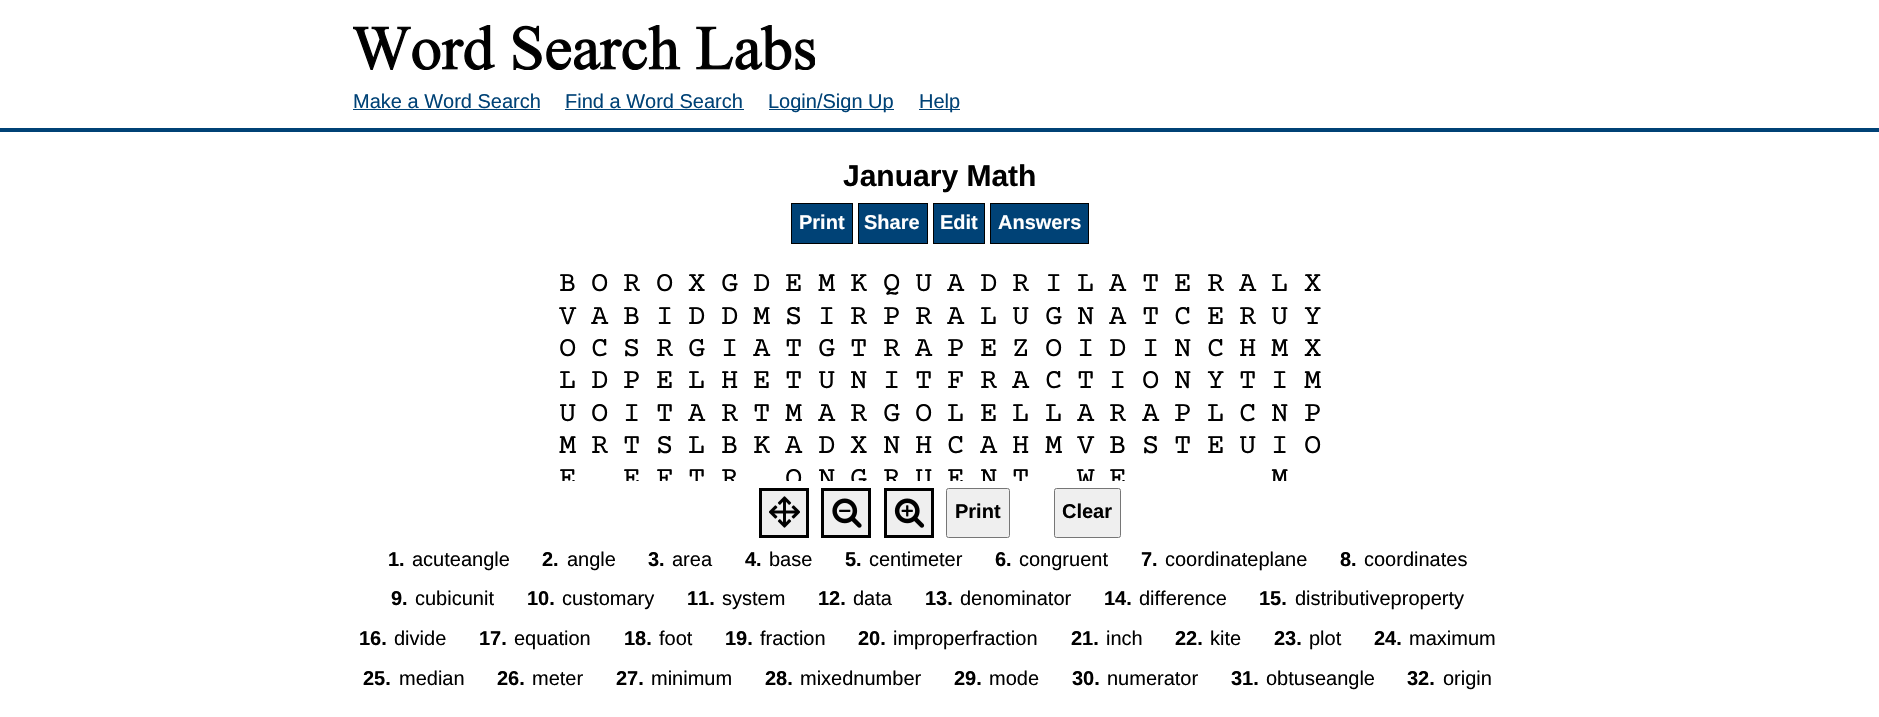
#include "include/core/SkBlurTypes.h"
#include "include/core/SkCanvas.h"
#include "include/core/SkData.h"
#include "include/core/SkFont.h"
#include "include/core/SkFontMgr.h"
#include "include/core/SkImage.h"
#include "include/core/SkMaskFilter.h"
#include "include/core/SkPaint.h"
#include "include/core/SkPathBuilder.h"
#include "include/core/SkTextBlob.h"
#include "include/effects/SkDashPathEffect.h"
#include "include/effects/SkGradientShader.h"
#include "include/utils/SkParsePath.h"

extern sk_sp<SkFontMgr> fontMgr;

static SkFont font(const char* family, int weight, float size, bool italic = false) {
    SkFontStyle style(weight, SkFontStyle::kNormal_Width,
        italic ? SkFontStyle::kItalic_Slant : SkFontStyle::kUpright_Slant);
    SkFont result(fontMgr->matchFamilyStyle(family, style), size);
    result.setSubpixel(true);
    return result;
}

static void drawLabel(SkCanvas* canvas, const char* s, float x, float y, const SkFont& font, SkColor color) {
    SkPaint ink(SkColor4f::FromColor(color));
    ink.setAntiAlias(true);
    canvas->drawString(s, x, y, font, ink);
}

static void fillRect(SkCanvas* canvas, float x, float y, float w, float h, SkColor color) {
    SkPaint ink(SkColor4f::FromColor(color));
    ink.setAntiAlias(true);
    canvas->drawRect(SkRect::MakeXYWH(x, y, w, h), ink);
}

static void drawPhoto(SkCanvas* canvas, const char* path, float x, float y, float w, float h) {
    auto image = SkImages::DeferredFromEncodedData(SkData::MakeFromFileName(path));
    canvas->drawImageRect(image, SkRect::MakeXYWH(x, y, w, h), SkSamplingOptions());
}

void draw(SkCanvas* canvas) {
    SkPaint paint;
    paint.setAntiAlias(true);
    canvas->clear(0xFFFFFFFF);
    drawPhoto(canvas, "assets/img1.png", 353, 25, 462, 45);
    SkFont font1 = font("Liberation Sans", 400, 20);
    drawLabel(canvas, "Make a Word Search", 353, 108, font1, 0xFF004276);
    fillRect(canvas, 353, 109, 187, 1, 0xFF004276);
    drawLabel(canvas, "Find a Word Search", 565, 108, font1, 0xFF004276);
    fillRect(canvas, 565, 109, 179, 1, 0xFF004276);
    fillRect(canvas, 769, 109, 125, 1, 0xFF004276);
    drawLabel(canvas, "Login/Sign Up", 768, 108, font1, 0xFF004276);
    fillRect(canvas, 919, 109, 41, 1, 0xFF004276);
    drawLabel(canvas, "Help", 919, 108, font1, 0xFF004276);
    fillRect(canvas, 0, 128, 1879, 4, 0xFF004276);
    SkFont font2 = font("Liberation Sans", 700, 30);
    drawLabel(canvas, "January Math", 843, 186, font2, 0xFF000000);
    paint.setColor(0xFF004276);
    canvas->drawRect(SkRect::MakeXYWH(791.5f, 203.5f, 61, 40), paint);
    paint.setStroke(true);
    paint.setStrokeWidth(1);
    paint.setColor(0xFF000000);
    canvas->drawRect(SkRect::MakeXYWH(791.5f, 203.5f, 61, 40), paint);
    SkFont font3 = font("Liberation Sans", 700, 20);
    drawLabel(canvas, "Print", 799, 229, font3, 0xFFFFFFFF);
    paint.setStroke(false);
    paint.setColor(0xFF004276);
    canvas->drawRect(SkRect::MakeXYWH(858.5f, 203.5f, 69, 40), paint);
    paint.setStroke(true);
    paint.setColor(0xFF000000);
    canvas->drawRect(SkRect::MakeXYWH(858.5f, 203.5f, 69, 40), paint);
    drawLabel(canvas, "Share", 864, 229, font3, 0xFFFFFFFF);
    paint.setStroke(false);
    paint.setColor(0xFF004276);
    canvas->drawRect(SkRect::MakeXYWH(933.5f, 203.5f, 51, 40), paint);
    paint.setStroke(true);
    paint.setColor(0xFF000000);
    canvas->drawRect(SkRect::MakeXYWH(933.5f, 203.5f, 51, 40), paint);
    drawLabel(canvas, "Edit", 940, 229, font3, 0xFFFFFFFF);
    paint.setStroke(false);
    paint.setColor(0xFF004276);
    canvas->drawRect(SkRect::MakeXYWH(990.5f, 203.5f, 98, 40), paint);
    paint.setStroke(true);
    paint.setColor(0xFF000000);
    canvas->drawRect(SkRect::MakeXYWH(990.5f, 203.5f, 98, 40), paint);
    drawLabel(canvas, "Answers", 998, 229, font3, 0xFFFFFFFF);
    SkFont font4 = font("Courier Prime", 400, 29);
    drawLabel(canvas, "B", 559, 291, font4, 0xFF000000);
    drawLabel(canvas, "O", 591, 291, font4, 0xFF000000);
    drawLabel(canvas, "R", 623, 291, font4, 0xFF000000);
    drawLabel(canvas, "O", 656, 291, font4, 0xFF000000);
    drawLabel(canvas, "X", 688, 291, font4, 0xFF000000);
    drawLabel(canvas, "G", 721, 291, font4, 0xFF000000);
    drawLabel(canvas, "D", 753, 291, font4, 0xFF000000);
    drawLabel(canvas, "E", 785, 291, font4, 0xFF000000);
    drawLabel(canvas, "M", 818, 291, font4, 0xFF000000);
    drawLabel(canvas, "K", 850, 291, font4, 0xFF000000);
    drawLabel(canvas, "Q", 883, 291, font4, 0xFF000000);
    drawLabel(canvas, "U", 915, 291, font4, 0xFF000000);
    drawLabel(canvas, "A", 947, 291, font4, 0xFF000000);
    drawLabel(canvas, "D", 980, 291, font4, 0xFF000000);
    drawLabel(canvas, "R", 1012, 291, font4, 0xFF000000);
    drawLabel(canvas, "I", 1045, 291, font4, 0xFF000000);
    drawLabel(canvas, "L", 1077, 291, font4, 0xFF000000);
    drawLabel(canvas, "A", 1109, 291, font4, 0xFF000000);
    drawLabel(canvas, "T", 1142, 291, font4, 0xFF000000);
    drawLabel(canvas, "E", 1174, 291, font4, 0xFF000000);
    drawLabel(canvas, "R", 1207, 291, font4, 0xFF000000);
    drawLabel(canvas, "A", 1239, 291, font4, 0xFF000000);
    drawLabel(canvas, "L", 1271, 291, font4, 0xFF000000);
    drawLabel(canvas, "X", 1304, 291, font4, 0xFF000000);
    drawLabel(canvas, "V", 559, 324, font4, 0xFF000000);
    drawLabel(canvas, "A", 591, 324, font4, 0xFF000000);
    drawLabel(canvas, "B", 623, 324, font4, 0xFF000000);
    drawLabel(canvas, "I", 656, 324, font4, 0xFF000000);
    drawLabel(canvas, "D", 688, 324, font4, 0xFF000000);
    drawLabel(canvas, "D", 721, 324, font4, 0xFF000000);
    drawLabel(canvas, "M", 753, 324, font4, 0xFF000000);
    drawLabel(canvas, "S", 785, 324, font4, 0xFF000000);
    drawLabel(canvas, "I", 818, 324, font4, 0xFF000000);
    drawLabel(canvas, "R", 850, 324, font4, 0xFF000000);
    drawLabel(canvas, "P", 883, 324, font4, 0xFF000000);
    drawLabel(canvas, "R", 915, 324, font4, 0xFF000000);
    drawLabel(canvas, "A", 947, 324, font4, 0xFF000000);
    drawLabel(canvas, "L", 980, 324, font4, 0xFF000000);
    drawLabel(canvas, "U", 1012, 324, font4, 0xFF000000);
    drawLabel(canvas, "G", 1045, 324, font4, 0xFF000000);
    drawLabel(canvas, "N", 1077, 324, font4, 0xFF000000);
    drawLabel(canvas, "A", 1109, 324, font4, 0xFF000000);
    drawLabel(canvas, "T", 1142, 324, font4, 0xFF000000);
    drawLabel(canvas, "C", 1174, 324, font4, 0xFF000000);
    drawLabel(canvas, "E", 1207, 324, font4, 0xFF000000);
    drawLabel(canvas, "R", 1239, 324, font4, 0xFF000000);
    drawLabel(canvas, "U", 1271, 324, font4, 0xFF000000);
    drawLabel(canvas, "Y", 1304, 324, font4, 0xFF000000);
    drawLabel(canvas, "O", 559, 356, font4, 0xFF000000);
    drawLabel(canvas, "C", 591, 356, font4, 0xFF000000);
    drawLabel(canvas, "S", 623, 356, font4, 0xFF000000);
    drawLabel(canvas, "R", 656, 356, font4, 0xFF000000);
    drawLabel(canvas, "G", 688, 356, font4, 0xFF000000);
    drawLabel(canvas, "I", 721, 356, font4, 0xFF000000);
    drawLabel(canvas, "A", 753, 356, font4, 0xFF000000);
    drawLabel(canvas, "T", 785, 356, font4, 0xFF000000);
    drawLabel(canvas, "G", 818, 356, font4, 0xFF000000);
    drawLabel(canvas, "T", 850, 356, font4, 0xFF000000);
    drawLabel(canvas, "R", 883, 356, font4, 0xFF000000);
    drawLabel(canvas, "A", 915, 356, font4, 0xFF000000);
    drawLabel(canvas, "P", 947, 356, font4, 0xFF000000);
    drawLabel(canvas, "E", 980, 356, font4, 0xFF000000);
    drawLabel(canvas, "Z", 1012, 356, font4, 0xFF000000);
    drawLabel(canvas, "O", 1045, 356, font4, 0xFF000000);
    drawLabel(canvas, "I", 1077, 356, font4, 0xFF000000);
    drawLabel(canvas, "D", 1109, 356, font4, 0xFF000000);
    drawLabel(canvas, "I", 1142, 356, font4, 0xFF000000);
    drawLabel(canvas, "N", 1174, 356, font4, 0xFF000000);
    drawLabel(canvas, "C", 1207, 356, font4, 0xFF000000);
    drawLabel(canvas, "H", 1239, 356, font4, 0xFF000000);
    drawLabel(canvas, "M", 1271, 356, font4, 0xFF000000);
    drawLabel(canvas, "X", 1304, 356, font4, 0xFF000000);
    drawLabel(canvas, "L", 559, 388, font4, 0xFF000000);
    drawLabel(canvas, "D", 591, 388, font4, 0xFF000000);
    drawLabel(canvas, "P", 623, 388, font4, 0xFF000000);
    drawLabel(canvas, "E", 656, 388, font4, 0xFF000000);
    drawLabel(canvas, "L", 688, 388, font4, 0xFF000000);
    drawLabel(canvas, "H", 721, 388, font4, 0xFF000000);
    drawLabel(canvas, "E", 753, 388, font4, 0xFF000000);
    drawLabel(canvas, "T", 785, 388, font4, 0xFF000000);
    drawLabel(canvas, "U", 818, 388, font4, 0xFF000000);
    drawLabel(canvas, "N", 850, 388, font4, 0xFF000000);
    drawLabel(canvas, "I", 883, 388, font4, 0xFF000000);
    drawLabel(canvas, "T", 915, 388, font4, 0xFF000000);
    drawLabel(canvas, "F", 947, 388, font4, 0xFF000000);
    drawLabel(canvas, "R", 980, 388, font4, 0xFF000000);
    drawLabel(canvas, "A", 1012, 388, font4, 0xFF000000);
    drawLabel(canvas, "C", 1045, 388, font4, 0xFF000000);
    drawLabel(canvas, "T", 1077, 388, font4, 0xFF000000);
    drawLabel(canvas, "I", 1109, 388, font4, 0xFF000000);
    drawLabel(canvas, "O", 1142, 388, font4, 0xFF000000);
    drawLabel(canvas, "N", 1174, 388, font4, 0xFF000000);
    drawLabel(canvas, "Y", 1207, 388, font4, 0xFF000000);
    drawLabel(canvas, "T", 1239, 388, font4, 0xFF000000);
    drawLabel(canvas, "I", 1271, 388, font4, 0xFF000000);
    drawLabel(canvas, "M", 1304, 388, font4, 0xFF000000);
    drawLabel(canvas, "U", 559, 421, font4, 0xFF000000);
    drawLabel(canvas, "O", 591, 421, font4, 0xFF000000);
    drawLabel(canvas, "I", 623, 421, font4, 0xFF000000);
    drawLabel(canvas, "T", 656, 421, font4, 0xFF000000);
    drawLabel(canvas, "A", 688, 421, font4, 0xFF000000);
    drawLabel(canvas, "R", 721, 421, font4, 0xFF000000);
    drawLabel(canvas, "T", 753, 421, font4, 0xFF000000);
    drawLabel(canvas, "M", 785, 421, font4, 0xFF000000);
    drawLabel(canvas, "A", 818, 421, font4, 0xFF000000);
    drawLabel(canvas, "R", 850, 421, font4, 0xFF000000);
    drawLabel(canvas, "G", 883, 421, font4, 0xFF000000);
    drawLabel(canvas, "O", 915, 421, font4, 0xFF000000);
    drawLabel(canvas, "L", 947, 421, font4, 0xFF000000);
    drawLabel(canvas, "E", 980, 421, font4, 0xFF000000);
    drawLabel(canvas, "L", 1012, 421, font4, 0xFF000000);
    drawLabel(canvas, "L", 1045, 421, font4, 0xFF000000);
    drawLabel(canvas, "A", 1077, 421, font4, 0xFF000000);
    drawLabel(canvas, "R", 1109, 421, font4, 0xFF000000);
    drawLabel(canvas, "A", 1142, 421, font4, 0xFF000000);
    drawLabel(canvas, "P", 1174, 421, font4, 0xFF000000);
    drawLabel(canvas, "L", 1207, 421, font4, 0xFF000000);
    drawLabel(canvas, "C", 1239, 421, font4, 0xFF000000);
    drawLabel(canvas, "N", 1271, 421, font4, 0xFF000000);
    drawLabel(canvas, "P", 1304, 421, font4, 0xFF000000);
    drawLabel(canvas, "M", 559, 453, font4, 0xFF000000);
    drawLabel(canvas, "R", 591, 453, font4, 0xFF000000);
    drawLabel(canvas, "T", 623, 453, font4, 0xFF000000);
    drawLabel(canvas, "S", 656, 453, font4, 0xFF000000);
    drawLabel(canvas, "L", 688, 453, font4, 0xFF000000);
    drawLabel(canvas, "B", 721, 453, font4, 0xFF000000);
    drawLabel(canvas, "K", 753, 453, font4, 0xFF000000);
    drawLabel(canvas, "A", 785, 453, font4, 0xFF000000);
    drawLabel(canvas, "D", 818, 453, font4, 0xFF000000);
    drawLabel(canvas, "X", 850, 453, font4, 0xFF000000);
    drawLabel(canvas, "N", 883, 453, font4, 0xFF000000);
    drawLabel(canvas, "H", 915, 453, font4, 0xFF000000);
    drawLabel(canvas, "C", 947, 453, font4, 0xFF000000);
    drawLabel(canvas, "A", 980, 453, font4, 0xFF000000);
    drawLabel(canvas, "H", 1012, 453, font4, 0xFF000000);
    drawLabel(canvas, "M", 1045, 453, font4, 0xFF000000);
    drawLabel(canvas, "V", 1077, 453, font4, 0xFF000000);
    drawLabel(canvas, "B", 1109, 453, font4, 0xFF000000);
    drawLabel(canvas, "S", 1142, 453, font4, 0xFF000000);
    drawLabel(canvas, "T", 1174, 453, font4, 0xFF000000);
    drawLabel(canvas, "E", 1207, 453, font4, 0xFF000000);
    drawLabel(canvas, "U", 1239, 453, font4, 0xFF000000);
    drawLabel(canvas, "I", 1271, 453, font4, 0xFF000000);
    drawLabel(canvas, "O", 1304, 453, font4, 0xFF000000);
    canvas->save();
    canvas->clipRect(SkRect::MakeXYWH(535, 250, 810, 231));
    drawLabel(canvas, "E", 559, 486, font4, 0xFF000000);
    drawLabel(canvas, "E", 623, 486, font4, 0xFF000000);
    drawLabel(canvas, "F", 656, 486, font4, 0xFF000000);
    drawLabel(canvas, "T", 688, 486, font4, 0xFF000000);
    drawLabel(canvas, "R", 721, 486, font4, 0xFF000000);
    drawLabel(canvas, "O", 785, 486, font4, 0xFF000000);
    drawLabel(canvas, "N", 818, 486, font4, 0xFF000000);
    drawLabel(canvas, "G", 850, 486, font4, 0xFF000000);
    drawLabel(canvas, "R", 883, 486, font4, 0xFF000000);
    drawLabel(canvas, "U", 915, 486, font4, 0xFF000000);
    drawLabel(canvas, "E", 947, 486, font4, 0xFF000000);
    drawLabel(canvas, "N", 980, 486, font4, 0xFF000000);
    drawLabel(canvas, "T", 1012, 486, font4, 0xFF000000);
    drawLabel(canvas, "W", 1077, 486, font4, 0xFF000000);
    drawLabel(canvas, "E", 1109, 486, font4, 0xFF000000);
    drawLabel(canvas, "M", 1271, 486, font4, 0xFF000000);
    canvas->restore();
    fillRect(canvas, 762, 491, 44, 44, 0xFFEFEFEF);
    drawPhoto(canvas, "assets/img2.png", 769, 496, 31, 32);
    paint.setStrokeWidth(3);
    canvas->drawRect(SkRect::MakeXYWH(760.5f, 489.5f, 47, 47), paint);
    fillRect(canvas, 824, 491, 44, 44, 0xFFEFEFEF);
    drawPhoto(canvas, "assets/img3.png", 832, 498, 30, 30);
    canvas->drawRect(SkRect::MakeXYWH(822.5f, 489.5f, 47, 47), paint);
    fillRect(canvas, 887, 491, 44, 44, 0xFFEFEFEF);
    drawPhoto(canvas, "assets/img4.png", 894, 498, 31, 30);
    canvas->drawRect(SkRect::MakeXYWH(885.5f, 489.5f, 47, 47), paint);
    paint.setStroke(false);
    paint.setColor(0xFFEFEFEF);
    canvas->drawRoundRect(SkRect::MakeXYWH(946.5f, 488.5f, 63, 49), 2, 2, paint);
    paint.setStroke(true);
    paint.setStrokeWidth(1);
    paint.setColor(0xFF767676);
    canvas->drawRoundRect(SkRect::MakeXYWH(946.5f, 488.5f, 63, 49), 2, 2, paint);
    drawLabel(canvas, "Print", 955, 518, font3, 0xFF000000);
    paint.setStroke(false);
    paint.setColor(0xFFEFEFEF);
    canvas->drawRoundRect(SkRect::MakeXYWH(1054.5f, 488.5f, 66, 49), 2, 2, paint);
    paint.setStroke(true);
    paint.setColor(0xFF767676);
    canvas->drawRoundRect(SkRect::MakeXYWH(1054.5f, 488.5f, 66, 49), 2, 2, paint);
    drawLabel(canvas, "Clear", 1062, 518, font3, 0xFF000000);
    drawLabel(canvas, "1.", 388, 566, font3, 0xFF000000);
    drawLabel(canvas, "acuteangle", 412, 566, font1, 0xFF000000);
    drawLabel(canvas, "2.", 542, 566, font3, 0xFF000000);
    drawLabel(canvas, "angle", 567, 566, font1, 0xFF000000);
    drawLabel(canvas, "3.", 648, 566, font3, 0xFF000000);
    drawLabel(canvas, "area", 672, 566, font1, 0xFF000000);
    drawLabel(canvas, "4.", 745, 566, font3, 0xFF000000);
    drawLabel(canvas, "base", 769, 566, font1, 0xFF000000);
    drawLabel(canvas, "5.", 845, 566, font3, 0xFF000000);
    drawLabel(canvas, "centimeter", 869, 566, font1, 0xFF000000);
    drawLabel(canvas, "6.", 995, 566, font3, 0xFF000000);
    drawLabel(canvas, "congruent", 1019, 566, font1, 0xFF000000);
    drawLabel(canvas, "7.", 1141, 566, font3, 0xFF000000);
    drawLabel(canvas, "coordinateplane", 1165, 566, font1, 0xFF000000);
    drawLabel(canvas, "8.", 1340, 566, font3, 0xFF000000);
    drawLabel(canvas, "coordinates", 1364, 566, font1, 0xFF000000);
    drawLabel(canvas, "9.", 391, 605, font3, 0xFF000000);
    drawLabel(canvas, "cubicunit", 415, 605, font1, 0xFF000000);
    drawLabel(canvas, "10.", 527, 605, font3, 0xFF000000);
    drawLabel(canvas, "customary", 562, 605, font1, 0xFF000000);
    drawLabel(canvas, "11.", 687, 605, font3, 0xFF000000);
    drawLabel(canvas, "system", 722, 605, font1, 0xFF000000);
    drawLabel(canvas, "12.", 818, 605, font3, 0xFF000000);
    drawLabel(canvas, "data", 853, 605, font1, 0xFF000000);
    drawLabel(canvas, "13.", 925, 605, font3, 0xFF000000);
    drawLabel(canvas, "denominator", 960, 605, font1, 0xFF000000);
    drawLabel(canvas, "14.", 1104, 605, font3, 0xFF000000);
    drawLabel(canvas, "difference", 1139, 605, font1, 0xFF000000);
    drawLabel(canvas, "15.", 1259, 605, font3, 0xFF000000);
    drawLabel(canvas, "distributiveproperty", 1295, 605, font1, 0xFF000000);
    drawLabel(canvas, "16.", 359, 645, font3, 0xFF000000);
    drawLabel(canvas, "divide", 394, 645, font1, 0xFF000000);
    drawLabel(canvas, "17.", 479, 645, font3, 0xFF000000);
    drawLabel(canvas, "equation", 514, 645, font1, 0xFF000000);
    drawLabel(canvas, "18.", 624, 645, font3, 0xFF000000);
    drawLabel(canvas, "foot", 659, 645, font1, 0xFF000000);
    drawLabel(canvas, "19.", 725, 645, font3, 0xFF000000);
    drawLabel(canvas, "fraction", 760, 645, font1, 0xFF000000);
    drawLabel(canvas, "20.", 858, 645, font3, 0xFF000000);
    drawLabel(canvas, "improperfraction", 893, 645, font1, 0xFF000000);
    drawLabel(canvas, "21.", 1071, 645, font3, 0xFF000000);
    drawLabel(canvas, "inch", 1106, 645, font1, 0xFF000000);
    drawLabel(canvas, "22.", 1175, 645, font3, 0xFF000000);
    drawLabel(canvas, "kite", 1210, 645, font1, 0xFF000000);
    drawLabel(canvas, "23.", 1274, 645, font3, 0xFF000000);
    drawLabel(canvas, "plot", 1309, 645, font1, 0xFF000000);
    drawLabel(canvas, "24.", 1374, 645, font3, 0xFF000000);
    drawLabel(canvas, "maximum", 1409, 645, font1, 0xFF000000);
    drawLabel(canvas, "25.", 363, 685, font3, 0xFF000000);
    drawLabel(canvas, "median", 399, 685, font1, 0xFF000000);
    drawLabel(canvas, "26.", 497, 685, font3, 0xFF000000);
    drawLabel(canvas, "meter", 532, 685, font1, 0xFF000000);
    drawLabel(canvas, "27.", 616, 685, font3, 0xFF000000);
    drawLabel(canvas, "minimum", 651, 685, font1, 0xFF000000);
    drawLabel(canvas, "28.", 765, 685, font3, 0xFF000000);
    drawLabel(canvas, "mixednumber", 800, 685, font1, 0xFF000000);
    drawLabel(canvas, "29.", 954, 685, font3, 0xFF000000);
    drawLabel(canvas, "mode", 989, 685, font1, 0xFF000000);
    drawLabel(canvas, "30.", 1072, 685, font3, 0xFF000000);
    drawLabel(canvas, "numerator", 1107, 685, font1, 0xFF000000);
    drawLabel(canvas, "31.", 1231, 685, font3, 0xFF000000);
    drawLabel(canvas, "obtuseangle", 1266, 685, font1, 0xFF000000);
    drawLabel(canvas, "32.", 1407, 685, font3, 0xFF000000);
    drawLabel(canvas, "origin", 1443, 685, font1, 0xFF000000);
}
